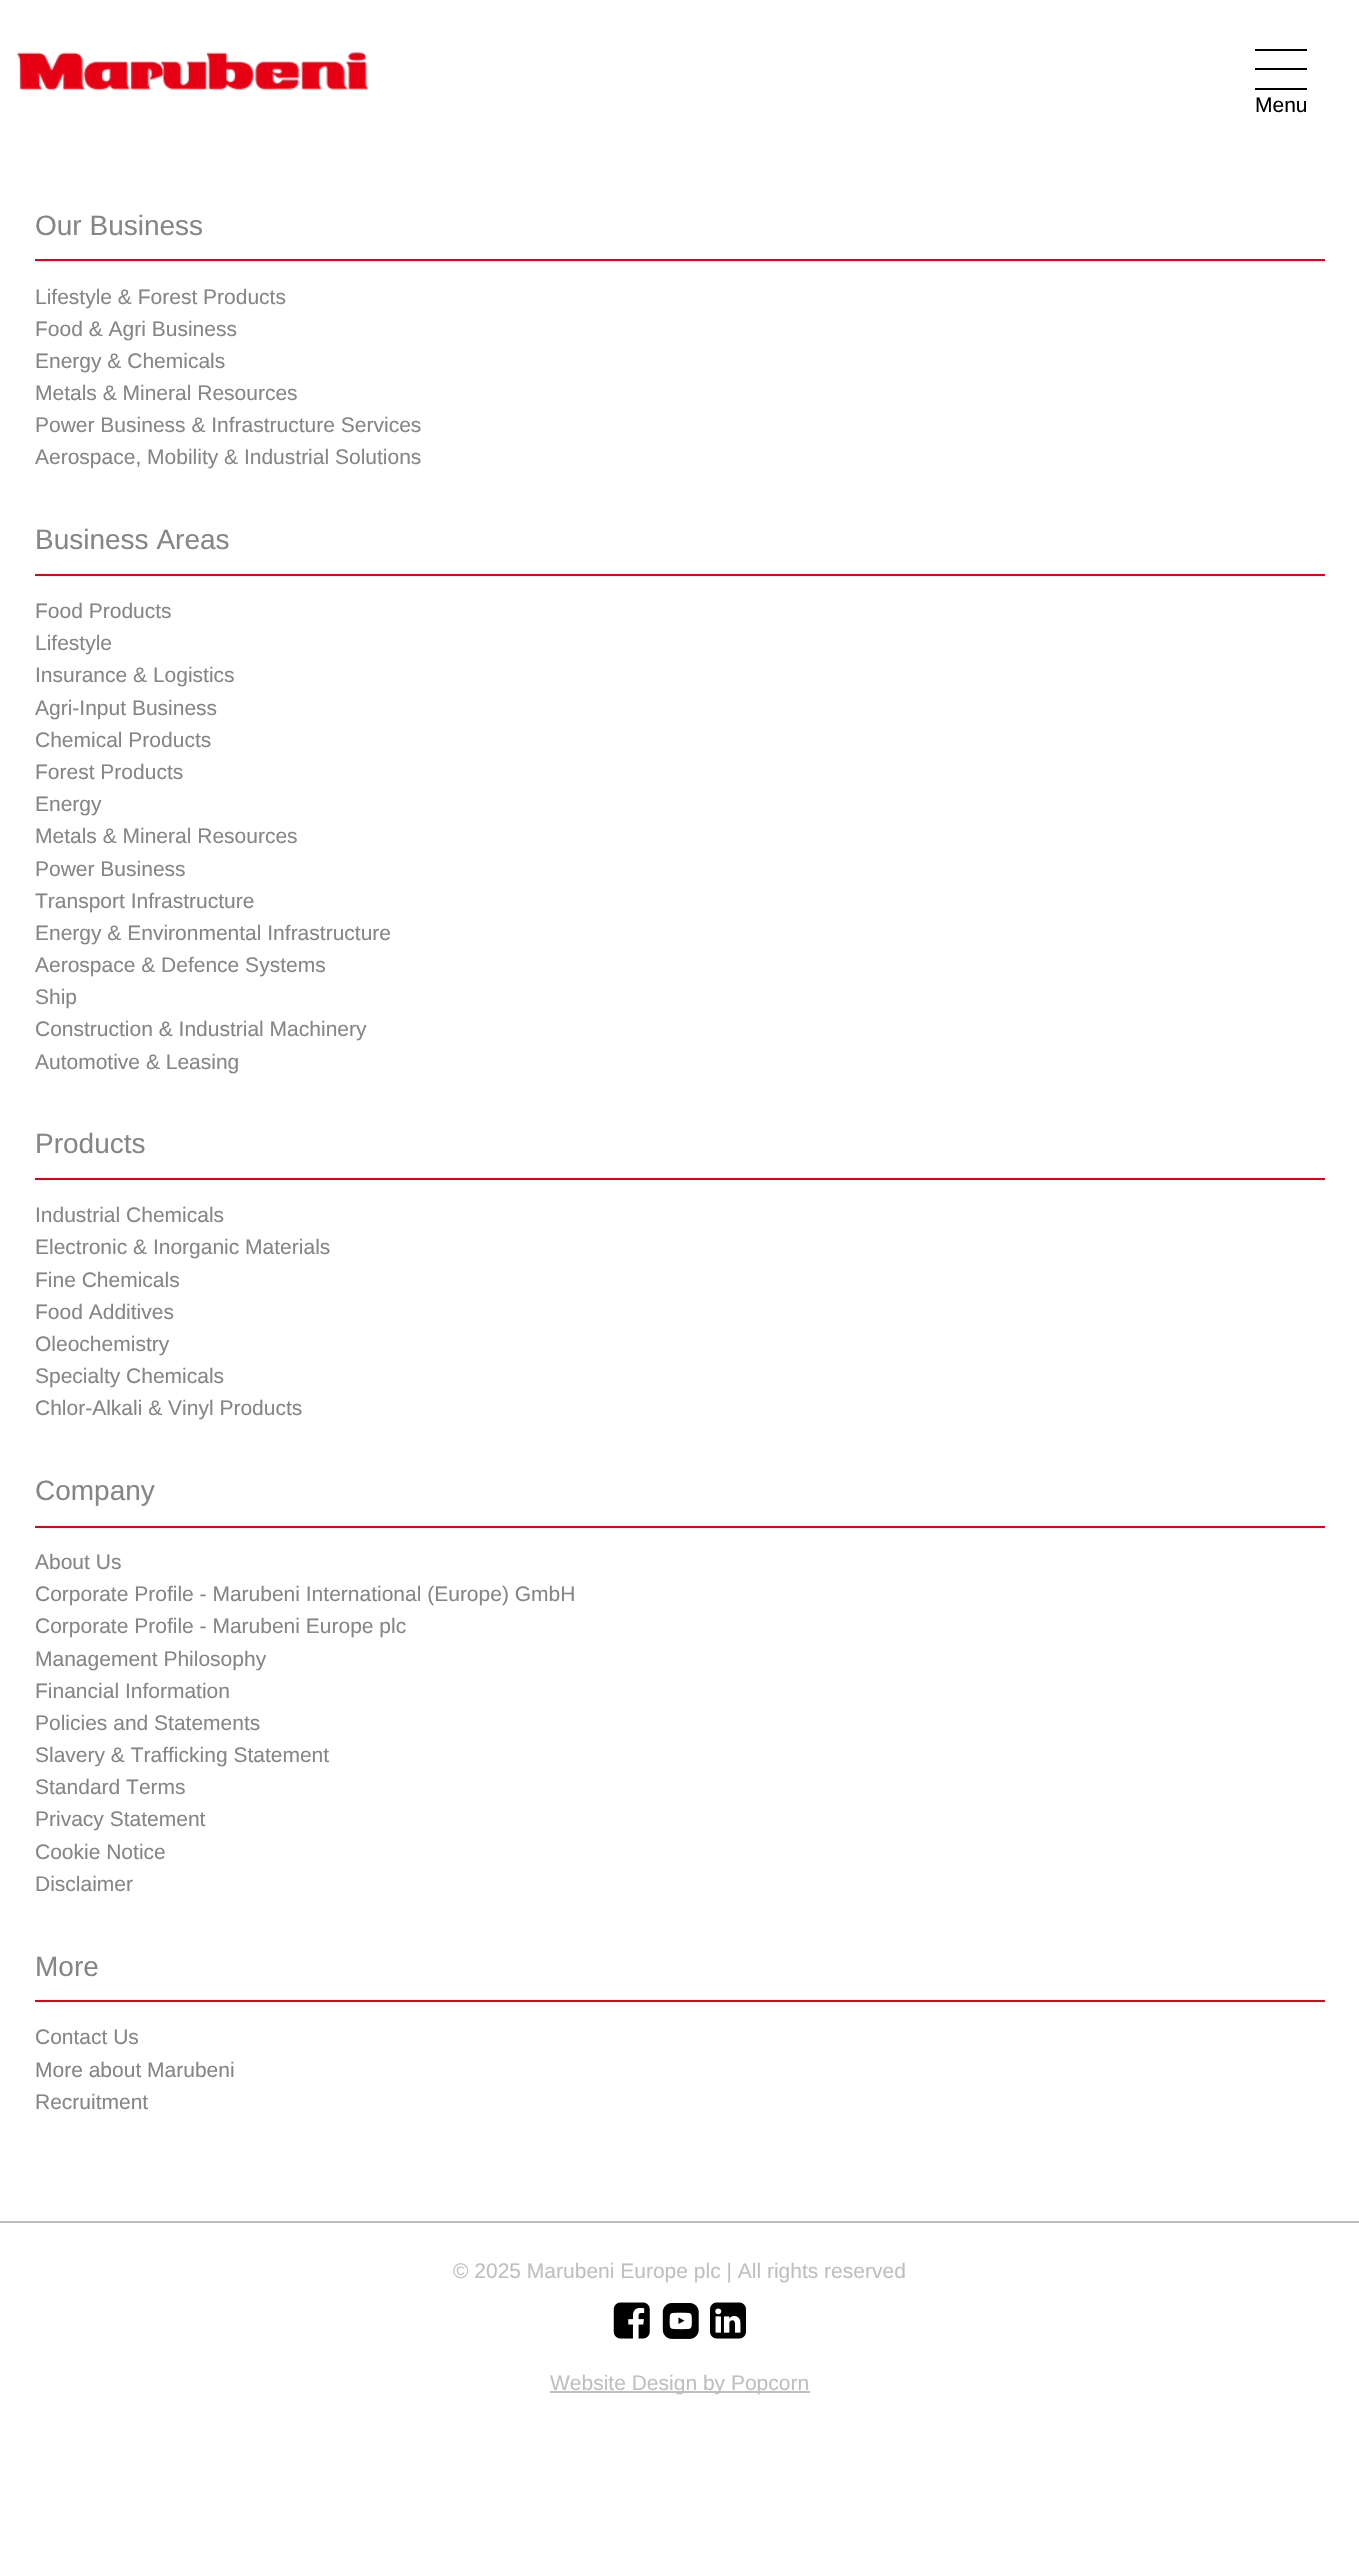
#include "include/core/SkBlurTypes.h"
#include "include/core/SkCanvas.h"
#include "include/core/SkData.h"
#include "include/core/SkFont.h"
#include "include/core/SkFontMgr.h"
#include "include/core/SkImage.h"
#include "include/core/SkMaskFilter.h"
#include "include/core/SkPaint.h"
#include "include/core/SkPathBuilder.h"
#include "include/core/SkTextBlob.h"
#include "include/effects/SkDashPathEffect.h"
#include "include/effects/SkGradientShader.h"
#include "include/utils/SkParsePath.h"

extern sk_sp<SkFontMgr> fontMgr;

static SkFont font(const char* family, int weight, float size, bool italic = false) {
    SkFontStyle style(weight, SkFontStyle::kNormal_Width,
        italic ? SkFontStyle::kItalic_Slant : SkFontStyle::kUpright_Slant);
    SkFont result(fontMgr->matchFamilyStyle(family, style), size);
    result.setSubpixel(true);
    return result;
}

static void drawLabel(SkCanvas* canvas, const char* s, float x, float y, const SkFont& font, SkColor color) {
    SkPaint ink(SkColor4f::FromColor(color));
    ink.setAntiAlias(true);
    canvas->drawString(s, x, y, font, ink);
}

static void fillRect(SkCanvas* canvas, float x, float y, float w, float h, SkColor color) {
    SkPaint ink(SkColor4f::FromColor(color));
    ink.setAntiAlias(true);
    canvas->drawRect(SkRect::MakeXYWH(x, y, w, h), ink);
}

static void drawPhoto(SkCanvas* canvas, const char* path, float x, float y, float w, float h) {
    auto image = SkImages::DeferredFromEncodedData(SkData::MakeFromFileName(path));
    canvas->drawImageRect(image, SkRect::MakeXYWH(x, y, w, h), SkSamplingOptions());
}

void draw(SkCanvas* canvas) {
    SkPaint paint;
    paint.setAntiAlias(true);
    canvas->clear(0xFFFFFFFF);
    drawPhoto(canvas, "assets/img1.png", 17, 52, 351, 38);
    fillRect(canvas, 1255, 49, 52, 2, 0xFF000000);
    fillRect(canvas, 1255, 68, 52, 2, 0xFF000000);
    fillRect(canvas, 1255, 88, 52, 2, 0xFF000000);
    SkFont font1 = font("Liberation Sans", 400, 21);
    drawLabel(canvas, "Menu", 1255, 112, font1, 0xFF000000);
    fillRect(canvas, 35, 259, 1290, 2, 0xFFE60013);
    SkFont font2 = font("Liberation Sans", 400, 28);
    drawLabel(canvas, "Our Business", 35, 235, font2, 0xFF868686);
    drawLabel(canvas, "Lifestyle & Forest Products", 35, 304, font1, 0xFF868686);
    drawLabel(canvas, "Food & Agri Business", 35, 336, font1, 0xFF868686);
    drawLabel(canvas, "Energy & Chemicals", 35, 368, font1, 0xFF868686);
    drawLabel(canvas, "Metals & Mineral Resources", 35, 400, font1, 0xFF868686);
    drawLabel(canvas, "Power Business & Infrastructure Services", 35, 432, font1, 0xFF868686);
    drawLabel(canvas, "Aerospace, Mobility & Industrial Solutions", 35, 464, font1, 0xFF868686);
    fillRect(canvas, 35, 574, 1290, 2, 0xFFE60013);
    drawLabel(canvas, "Business Areas", 35, 549, font2, 0xFF868686);
    drawLabel(canvas, "Food Products", 35, 618, font1, 0xFF868686);
    drawLabel(canvas, "Lifestyle", 35, 650, font1, 0xFF868686);
    drawLabel(canvas, "Insurance & Logistics", 35, 682, font1, 0xFF868686);
    drawLabel(canvas, "Agri-Input Business", 35, 715, font1, 0xFF868686);
    drawLabel(canvas, "Chemical Products", 35, 747, font1, 0xFF868686);
    drawLabel(canvas, "Forest Products", 35, 779, font1, 0xFF868686);
    drawLabel(canvas, "Energy", 35, 811, font1, 0xFF868686);
    drawLabel(canvas, "Metals & Mineral Resources", 35, 843, font1, 0xFF868686);
    drawLabel(canvas, "Power Business", 35, 876, font1, 0xFF868686);
    drawLabel(canvas, "Transport Infrastructure", 35, 908, font1, 0xFF868686);
    drawLabel(canvas, "Energy & Environmental Infrastructure", 35, 940, font1, 0xFF868686);
    drawLabel(canvas, "Aerospace & Defence Systems", 35, 972, font1, 0xFF868686);
    drawLabel(canvas, "Ship", 35, 1004, font1, 0xFF868686);
    drawLabel(canvas, "Construction & Industrial Machinery", 35, 1036, font1, 0xFF868686);
    drawLabel(canvas, "Automotive & Leasing", 35, 1069, font1, 0xFF868686);
    fillRect(canvas, 35, 1178, 1290, 2, 0xFFE60013);
    drawLabel(canvas, "Products", 35, 1153, font2, 0xFF868686);
    drawLabel(canvas, "Industrial Chemicals", 35, 1222, font1, 0xFF868686);
    drawLabel(canvas, "Electronic & Inorganic Materials", 35, 1254, font1, 0xFF868686);
    drawLabel(canvas, "Fine Chemicals", 35, 1287, font1, 0xFF868686);
    drawLabel(canvas, "Food Additives", 35, 1319, font1, 0xFF868686);
    drawLabel(canvas, "Oleochemistry", 35, 1351, font1, 0xFF868686);
    drawLabel(canvas, "Specialty Chemicals", 35, 1383, font1, 0xFF868686);
    drawLabel(canvas, "Chlor-Alkali & Vinyl Products", 35, 1415, font1, 0xFF868686);
    fillRect(canvas, 35, 1526, 1290, 2, 0xFFE60013);
    drawLabel(canvas, "Company", 35, 1500, font2, 0xFF868686);
    drawLabel(canvas, "About Us", 35, 1569, font1, 0xFF868686);
    drawLabel(canvas, "Corporate Profile - Marubeni International (Europe) GmbH", 35, 1601, font1, 0xFF868686);
    drawLabel(canvas, "Corporate Profile - Marubeni Europe plc", 35, 1633, font1, 0xFF868686);
    drawLabel(canvas, "Management Philosophy", 35, 1666, font1, 0xFF868686);
    drawLabel(canvas, "Financial Information", 35, 1698, font1, 0xFF868686);
    drawLabel(canvas, "Policies and Statements", 35, 1730, font1, 0xFF868686);
    drawLabel(canvas, "Slavery & Trafficking Statement", 35, 1762, font1, 0xFF868686);
    drawLabel(canvas, "Standard Terms", 35, 1794, font1, 0xFF868686);
    drawLabel(canvas, "Privacy Statement", 35, 1826, font1, 0xFF868686);
    drawLabel(canvas, "Cookie Notice", 35, 1859, font1, 0xFF868686);
    drawLabel(canvas, "Disclaimer", 35, 1891, font1, 0xFF868686);
    fillRect(canvas, 35, 2000, 1290, 2, 0xFFE60013);
    drawLabel(canvas, "More", 35, 1976, font2, 0xFF868686);
    drawLabel(canvas, "Contact Us", 35, 2044, font1, 0xFF868686);
    drawLabel(canvas, "More about Marubeni", 35, 2077, font1, 0xFF868686);
    drawLabel(canvas, "Recruitment", 35, 2109, font1, 0xFF868686);
    fillRect(canvas, 0, 2221, 1359, 2, 0xFFBFBFBF);
    drawLabel(canvas, "© 2025 Marubeni Europe plc | All rights reserved", 453, 2278, font1, 0xFFBFBFBF);
    drawPhoto(canvas, "assets/img2.png", 613, 2302, 37, 37);
    drawPhoto(canvas, "assets/img3.png", 662, 2303, 37, 36);
    drawPhoto(canvas, "assets/img4.png", 710, 2302, 36, 37);
    fillRect(canvas, 550, 2391, 260, 2, 0xFFBFBFBF);
    drawLabel(canvas, "Website Design by Popcorn", 550, 2390, font1, 0xFFBFBFBF);
}
